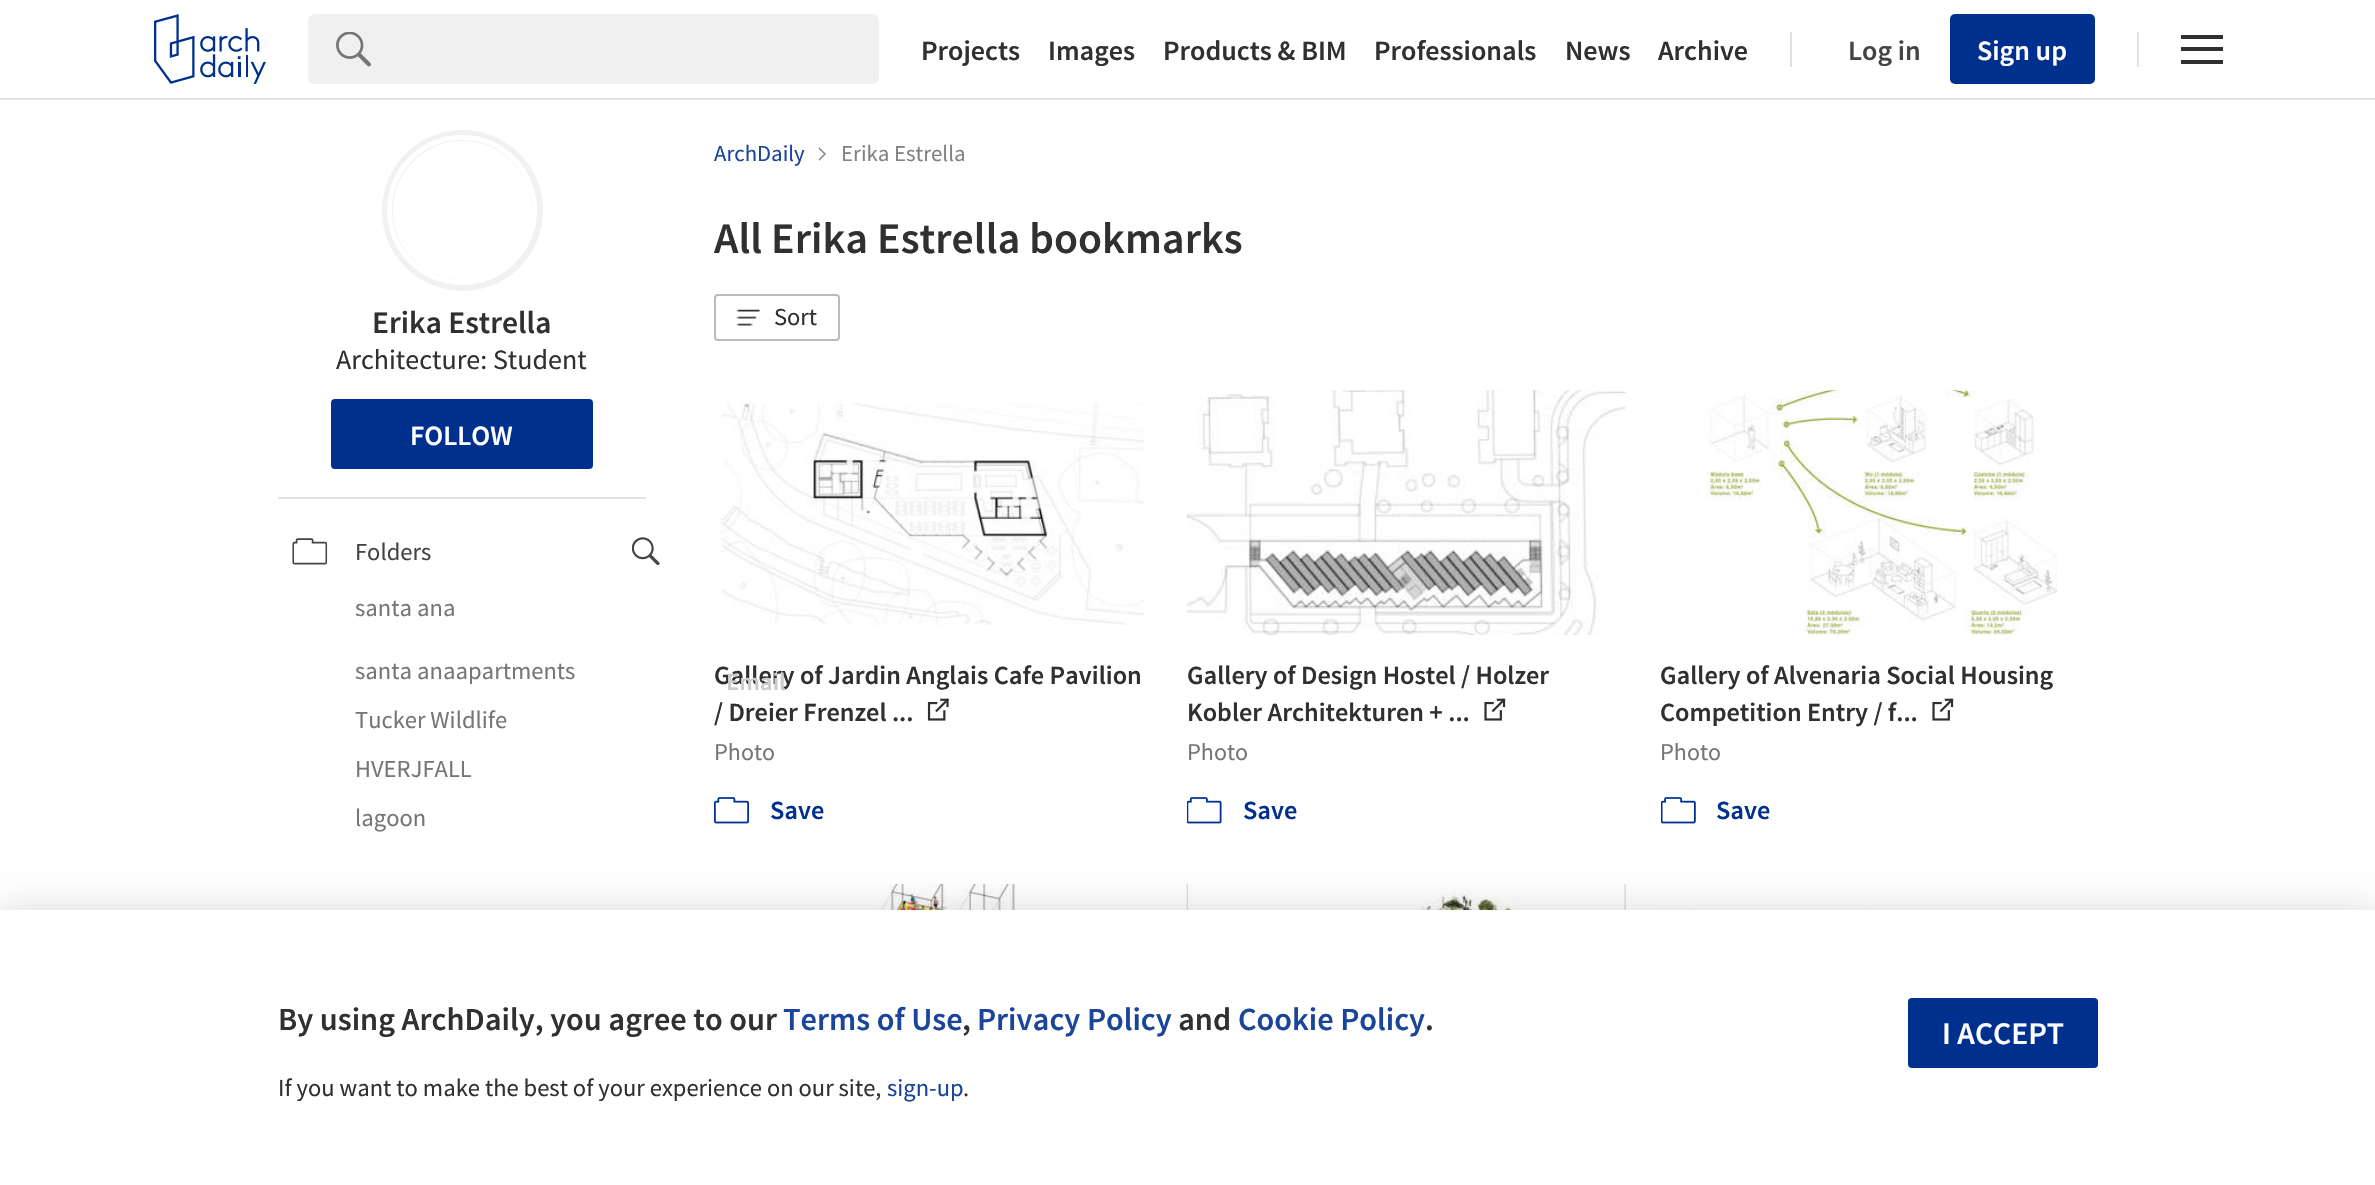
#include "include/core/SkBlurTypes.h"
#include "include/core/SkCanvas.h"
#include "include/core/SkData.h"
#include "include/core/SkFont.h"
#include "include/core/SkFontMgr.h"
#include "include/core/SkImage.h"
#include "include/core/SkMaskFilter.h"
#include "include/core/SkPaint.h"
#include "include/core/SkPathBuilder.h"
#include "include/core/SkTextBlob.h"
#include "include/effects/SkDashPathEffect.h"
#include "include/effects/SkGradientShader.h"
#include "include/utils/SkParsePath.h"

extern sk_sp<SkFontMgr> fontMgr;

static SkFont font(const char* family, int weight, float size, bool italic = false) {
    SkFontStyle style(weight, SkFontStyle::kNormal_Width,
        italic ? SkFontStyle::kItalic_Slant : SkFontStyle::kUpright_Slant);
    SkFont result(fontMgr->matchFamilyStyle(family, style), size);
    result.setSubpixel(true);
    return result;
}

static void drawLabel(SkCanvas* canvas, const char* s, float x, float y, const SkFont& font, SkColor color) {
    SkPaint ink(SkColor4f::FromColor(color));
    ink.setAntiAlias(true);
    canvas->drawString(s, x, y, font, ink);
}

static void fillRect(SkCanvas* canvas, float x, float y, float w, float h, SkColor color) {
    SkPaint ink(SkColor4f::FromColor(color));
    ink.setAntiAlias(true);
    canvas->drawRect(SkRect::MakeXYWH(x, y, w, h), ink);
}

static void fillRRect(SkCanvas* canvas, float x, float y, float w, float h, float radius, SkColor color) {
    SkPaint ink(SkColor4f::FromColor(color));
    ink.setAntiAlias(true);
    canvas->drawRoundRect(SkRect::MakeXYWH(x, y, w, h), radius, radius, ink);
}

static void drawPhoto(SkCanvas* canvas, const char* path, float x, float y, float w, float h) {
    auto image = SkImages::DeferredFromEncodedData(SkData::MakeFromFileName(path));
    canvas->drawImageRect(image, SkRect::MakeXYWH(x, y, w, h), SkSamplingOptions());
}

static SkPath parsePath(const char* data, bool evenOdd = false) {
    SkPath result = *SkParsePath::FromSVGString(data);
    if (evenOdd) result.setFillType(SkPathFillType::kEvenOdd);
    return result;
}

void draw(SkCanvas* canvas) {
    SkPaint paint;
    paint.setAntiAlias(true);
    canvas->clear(0xFFFFFFFF);
    fillRect(canvas, 0, 98, 2375, 2, 0xFFE1E1E1);
    drawPhoto(canvas, "assets/img1.png", 154, 14, 112, 70);
    fillRRect(canvas, 308, 14, 571, 70, 7, 0xFFF0F0F0);
    drawPhoto(canvas, "assets/img2.png", 336, 32, 35, 35);
    SkFont font1 = font("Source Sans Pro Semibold", 600, 28);
    drawLabel(canvas, "Projects", 921, 60, font1, 0xFF303030);
    drawLabel(canvas, "Images", 1048, 60, font1, 0xFF303030);
    drawLabel(canvas, "Products & BIM", 1163, 60, font1, 0xFF303030);
    drawLabel(canvas, "Professionals", 1374, 60, font1, 0xFF303030);
    drawLabel(canvas, "News", 1565, 60, font1, 0xFF303030);
    drawLabel(canvas, "Archive", 1658, 60, font1, 0xFF303030);
    fillRect(canvas, 1790, 32, 2, 35, 0xFFE1E1E1);
    drawLabel(canvas, "Log in", 1848, 60, font1, 0xFF444444);
    fillRRect(canvas, 1950, 14, 145, 70, 5, 0xFF00308E);
    drawLabel(canvas, "Sign up", 1977, 60, font1, 0xFFFFFFFF);
    fillRect(canvas, 2137, 32, 2, 35, 0xFFE1E1E1);
    fillRect(canvas, 2181, 47, 42, 4, 0xFF303030);
    fillRect(canvas, 2181, 35, 42, 4, 0xFF303030);
    fillRect(canvas, 2181, 60, 42, 4, 0xFF303030);
    drawPhoto(canvas, "assets/img14.png", 723, 883, 408, 27);
    drawPhoto(canvas, "assets/img15.png", 1186, 884, 440, 26);
    drawPhoto(canvas, "assets/img16.png", 1661, 908, 433, 2);
    paint.setColor(0x26000000);
    paint.setMaskFilter(SkMaskFilter::MakeBlur(kNormal_SkBlurStyle, 17.5f));
    canvas->drawRect(SkRect::MakeXYWH(0, 910, 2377, 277), paint);
    paint.setMaskFilter(nullptr);
    fillRect(canvas, 0, 910, 2375, 275, 0xFFFFFFFF);
    SkFont font2 = font("Source Sans Pro Semibold", 600, 32.25f);
    drawLabel(canvas, "By using ArchDaily, you agree to our", 278, 1030, font2, 0xFF303030);
    drawLabel(canvas, "Terms of Use", 783, 1030, font2, 0xFF1A4599);
    drawLabel(canvas, ",", 962, 1030, font2, 0xFF303030);
    drawLabel(canvas, "Privacy Policy", 977, 1030, font2, 0xFF1A4599);
    drawLabel(canvas, "and", 1178, 1030, font2, 0xFF303030);
    drawLabel(canvas, "Cookie Policy", 1238, 1030, font2, 0xFF1A4599);
    drawLabel(canvas, ".", 1425, 1030, font2, 0xFF303030);
    SkFont font3 = font("Source Sans Pro", 400, 24.5f);
    drawLabel(canvas, "If you want to make the best of your experience on our site,", 278, 1096, font3, 0xFF303030);
    drawLabel(canvas, "sign-up", 887, 1096, font3, 0xFF1A4599);
    drawLabel(canvas, ".", 963, 1096, font3, 0xFF303030);
    fillRRect(canvas, 1908, 998, 190, 70, 4, 0xFF00308E);
    SkFont font4 = font("Source Sans Pro Semibold", 600, 31.5f);
    drawLabel(canvas, "I ACCEPT", 1942, 1044, font4, 0xFFFFFFFF);
    paint.setStroke(true);
    paint.setStrokeWidth(11);
    paint.setColor(0xFFF1F1F1);
    canvas->drawCircle(462.5f, 210.5f, 75, paint);
    paint.setStrokeWidth(5);
    paint.setColor(0xFFFFFFFF);
    canvas->drawCircle(462, 210, 72.5f, paint);
    drawLabel(canvas, "Erika Estrella", 372, 333, font4, 0xFF303030);
    SkFont font5 = font("Source Sans Pro", 400, 28);
    drawLabel(canvas, "Architecture: Student", 336, 369, font5, 0xFF303030);
    fillRRect(canvas, 331, 399, 262, 70, 4, 0xFF00308E);
    drawLabel(canvas, "FOLLOW", 410, 445, font1, 0xFFFFFFFF);
    fillRect(canvas, 278, 497, 368, 2, 0xFFE1E1E1);
    drawPhoto(canvas, "assets/img3.png", 292, 538, 36, 27);
    drawLabel(canvas, "Folders", 355, 560, font3, 0xFF444444);
    drawPhoto(canvas, "assets/img4.png", 632, 537, 28, 28);
    drawLabel(canvas, "santa ana", 355, 616, font3, 0xFF767676);
    drawLabel(canvas, "santa anaapartments", 355, 679, font3, 0xFF767676);
    drawLabel(canvas, "Tucker Wildlife", 355, 728, font3, 0xFF767676);
    drawLabel(canvas, "HVERJFALL", 355, 777, font3, 0xFF767676);
    drawLabel(canvas, "lagoon", 355, 826, font3, 0xFF767676);
    SkFont font6 = font("Source Sans Pro", 400, 22.75f);
    drawLabel(canvas, "ArchDaily", 714, 161, font6, 0xFF1A4599);
    paint.setStroke(false);
    paint.setColor(0xFF828282);
    canvas->drawPath(parsePath("M819 161V147L826 154Z"), paint);
    paint.setColor(0xFFFFFFFF);
    canvas->drawPath(parsePath("M817 161V147L824 154Z"), paint);
    drawLabel(canvas, "Erika Estrella", 841, 161, font6, 0xFF828282);
    SkFont font7 = font("Source Sans Pro Semibold", 600, 43.75f);
    drawLabel(canvas, "All Erika Estrella bookmarks", 714, 253, font7, 0xFF303030);
    paint.setStroke(true);
    paint.setStrokeWidth(2);
    paint.setColor(0xFFBBBBBB);
    canvas->drawRoundRect(SkRect::MakeXYWH(715, 295, 124, 45), 3, 3, paint);
    drawPhoto(canvas, "assets/img5.png", 736, 309, 24, 17);
    drawLabel(canvas, "Sort", 774, 325, font3, 0xFF303030);
    drawPhoto(canvas, "assets/img6.png", 720, 403, 425, 223);
    SkFont font8 = font("Source Sans Pro Semibold", 600, 26.25f);
    drawLabel(canvas, "Gallery of Jardin Anglais Cafe Pavilion", 714, 684, font8, 0xFF303030);
    drawLabel(canvas, "/ Dreier Frenzel ...", 714, 721, font8, 0xFF303030);
    drawPhoto(canvas, "assets/img7.png", 927, 698, 22, 23);
    SkFont font9 = font("Source Sans Pro", 400, 24);
    drawLabel(canvas, "Photo", 714, 760, font9, 0xFF767676);
    drawPhoto(canvas, "assets/img8.png", 714, 797, 35, 27);
    drawLabel(canvas, "Save", 770, 819, font8, 0xFF00308E);
    drawPhoto(canvas, "assets/img9.png", 1186, 390, 440, 245);
    drawLabel(canvas, "Gallery of Design Hostel / Holzer", 1187, 684, font8, 0xFF303030);
    drawLabel(canvas, "Kobler Architekturen + ...", 1187, 721, font8, 0xFF303030);
    drawPhoto(canvas, "assets/img10.png", 1484, 698, 22, 23);
    drawLabel(canvas, "Photo", 1187, 760, font9, 0xFF767676);
    drawPhoto(canvas, "assets/img11.png", 1187, 797, 35, 27);
    drawLabel(canvas, "Save", 1243, 819, font8, 0xFF00308E);
    drawPhoto(canvas, "assets/img12.png", 1707, 390, 350, 245);
    drawLabel(canvas, "Gallery of Alvenaria Social Housing", 1660, 684, font8, 0xFF303030);
    drawLabel(canvas, "Competition Entry / f...", 1660, 721, font8, 0xFF303030);
    drawPhoto(canvas, "assets/img10.png", 1932, 698, 22, 23);
    drawLabel(canvas, "Photo", 1660, 760, font9, 0xFF767676);
    drawPhoto(canvas, "assets/img13.png", 1661, 797, 35, 27);
    drawLabel(canvas, "Save", 1716, 819, font8, 0xFF00308E);
    SkFont font10 = font("Source Sans Pro Semibold", 600, 24.5f);
    drawLabel(canvas, "Email", 726, 690, font10, 0xFFCBCBCB);
}
